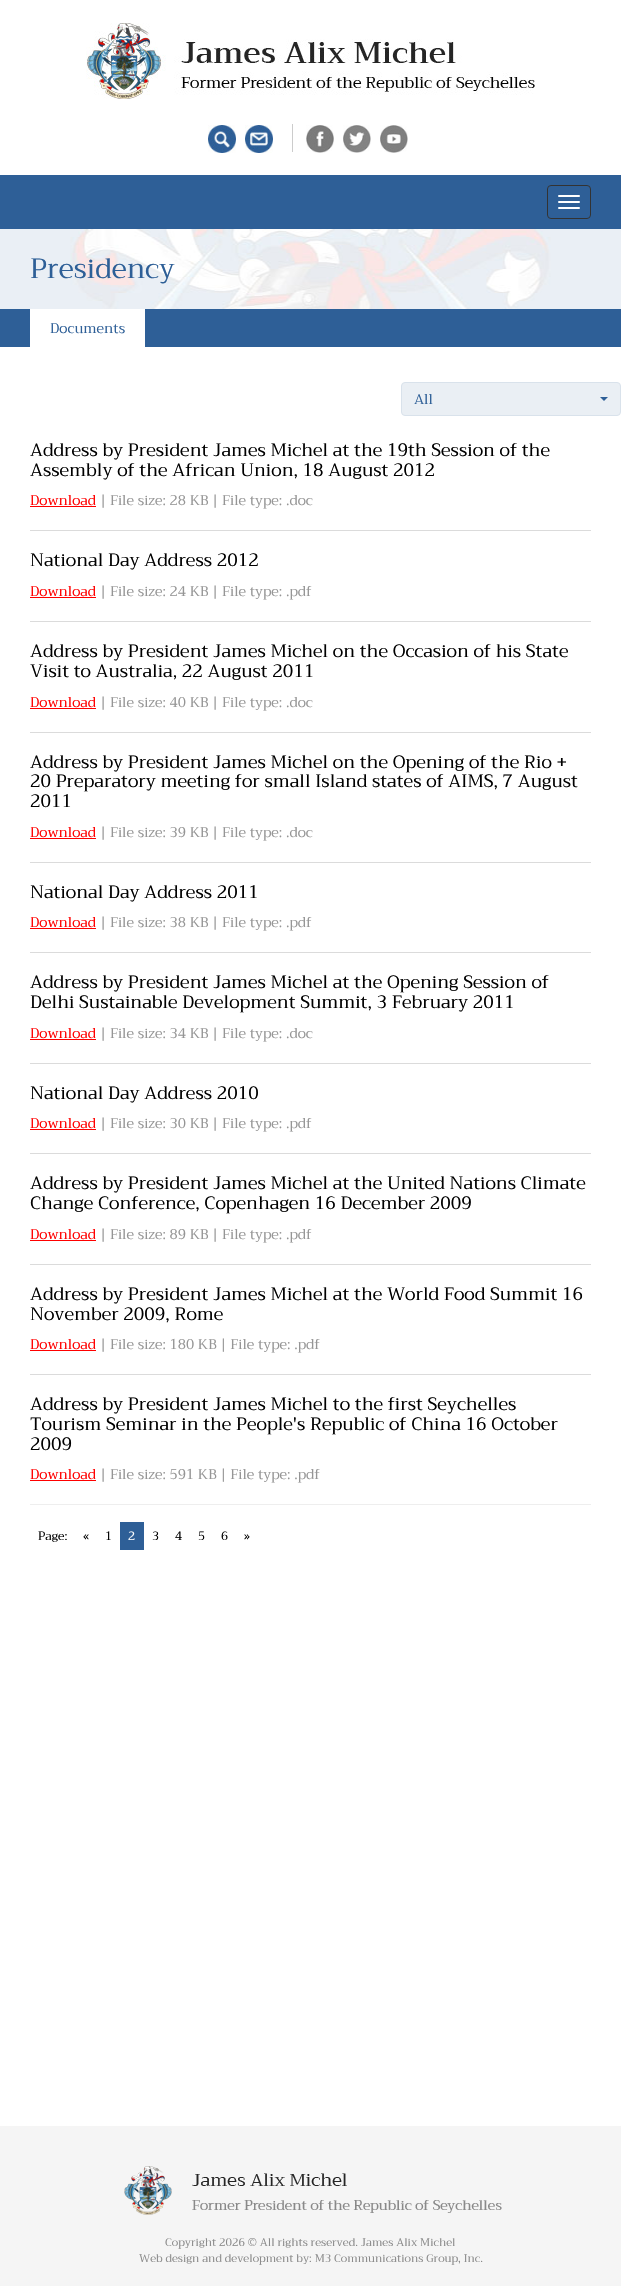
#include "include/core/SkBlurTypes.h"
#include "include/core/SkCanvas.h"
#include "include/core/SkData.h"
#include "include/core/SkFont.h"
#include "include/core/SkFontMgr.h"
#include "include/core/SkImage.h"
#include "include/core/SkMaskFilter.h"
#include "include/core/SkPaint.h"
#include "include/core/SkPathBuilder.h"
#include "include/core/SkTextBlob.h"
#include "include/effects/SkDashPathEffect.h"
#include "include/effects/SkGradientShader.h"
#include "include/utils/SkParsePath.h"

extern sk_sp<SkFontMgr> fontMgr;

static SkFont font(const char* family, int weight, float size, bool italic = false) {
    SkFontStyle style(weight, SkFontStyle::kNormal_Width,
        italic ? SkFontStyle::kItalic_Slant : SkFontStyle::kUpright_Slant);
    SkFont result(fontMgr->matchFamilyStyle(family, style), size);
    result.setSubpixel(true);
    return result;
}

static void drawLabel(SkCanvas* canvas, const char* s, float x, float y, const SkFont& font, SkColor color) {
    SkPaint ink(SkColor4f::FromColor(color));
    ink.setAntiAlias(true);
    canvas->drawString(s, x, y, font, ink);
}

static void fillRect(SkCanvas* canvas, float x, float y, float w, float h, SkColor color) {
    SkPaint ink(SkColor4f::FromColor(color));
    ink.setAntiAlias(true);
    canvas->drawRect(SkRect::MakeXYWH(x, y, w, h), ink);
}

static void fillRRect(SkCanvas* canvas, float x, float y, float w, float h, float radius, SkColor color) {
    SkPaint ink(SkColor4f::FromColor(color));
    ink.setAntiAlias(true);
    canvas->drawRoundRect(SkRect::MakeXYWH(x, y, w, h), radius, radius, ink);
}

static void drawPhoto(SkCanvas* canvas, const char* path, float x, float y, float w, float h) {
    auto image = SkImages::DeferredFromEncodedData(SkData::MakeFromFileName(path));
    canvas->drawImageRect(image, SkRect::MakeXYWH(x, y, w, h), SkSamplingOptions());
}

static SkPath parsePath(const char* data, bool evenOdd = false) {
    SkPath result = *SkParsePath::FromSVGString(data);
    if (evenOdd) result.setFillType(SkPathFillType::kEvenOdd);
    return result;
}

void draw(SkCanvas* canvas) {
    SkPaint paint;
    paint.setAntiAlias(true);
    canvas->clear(0xFFFFFFFF);
    drawPhoto(canvas, "assets/img1.png", 86, 23, 449, 76);
    drawPhoto(canvas, "assets/img2.png", 208, 125, 28, 28);
    drawPhoto(canvas, "assets/img3.png", 245, 125, 28, 28);
    fillRect(canvas, 292, 124, 1, 28, 0xFFCCCCCC);
    drawPhoto(canvas, "assets/img4.png", 306, 125, 28, 28);
    drawPhoto(canvas, "assets/img5.png", 343, 125, 28, 28);
    drawPhoto(canvas, "assets/img6.png", 380, 125, 28, 28);
    fillRect(canvas, 0, 175, 621, 54, 0xFF2E5F97);
    paint.setStroke(true);
    paint.setStrokeWidth(1);
    paint.setColor(0xFF333333);
    canvas->drawRoundRect(SkRect::MakeXYWH(547.5f, 185.5f, 43, 33), 3.5f, 3.5f, paint);
    fillRRect(canvas, 558, 195, 22, 2, 1, 0xFFFFFFFF);
    fillRRect(canvas, 558, 201, 22, 2, 1, 0xFFFFFFFF);
    fillRRect(canvas, 558, 207, 22, 2, 1, 0xFFFFFFFF);
    drawPhoto(canvas, "assets/img7.png", 0, 229, 621, 80);
    SkFont font1 = font("Trirong", 400, 28);
    drawLabel(canvas, "Presidency", 30, 278, font1, 0xFF2E5F97);
    fillRect(canvas, 0, 309, 621, 38, 0xFF2E5F97);
    fillRect(canvas, 30, 309, 115, 38, 0xFFFFFFFF);
    SkFont font2 = font("Trirong", 400, 14);
    drawLabel(canvas, "Documents", 50, 333, font2, 0xFF2E5F97);
    paint.setStroke(false);
    paint.setColor(0xFFEAEFF4);
    canvas->drawRoundRect(SkRect::MakeXYWH(401.5f, 382.5f, 219, 33), 3.5f, 3.5f, paint);
    paint.setStroke(true);
    paint.setColor(0xFFD9E2EB);
    canvas->drawRoundRect(SkRect::MakeXYWH(401.5f, 382.5f, 219, 33), 3.5f, 3.5f, paint);
    drawLabel(canvas, "All", 414, 404, font2, 0xFF2E5F97);
    paint.setStroke(false);
    paint.setColor(0xFF2E5F97);
    canvas->drawPath(parsePath("M600 397H608L604 401Z"), paint);
    SkFont font3 = font("Trirong", 400, 17.9f);
    drawLabel(canvas, "Address by President James Michel at the 19th Session of the", 30, 456, font3, 0xFF000000);
    drawLabel(canvas, "Assembly of the African Union, 18 August 2012", 30, 476, font3, 0xFF000000);
    drawLabel(canvas, "Download", 30, 505, font2, 0xFFFF0000);
    fillRect(canvas, 30, 506, 66, 1, 0xFFFF0000);
    drawLabel(canvas, "| File size: 28 KB | File type: .doc", 100, 505, font2, 0xFF959595);
    fillRect(canvas, 30, 530, 561, 1, 0xFFDBDBDB);
    drawLabel(canvas, "National Day Address 2012", 30, 566, font3, 0xFF000000);
    drawLabel(canvas, "Download", 30, 596, font2, 0xFFFF0000);
    fillRect(canvas, 30, 597, 66, 1, 0xFFFF0000);
    drawLabel(canvas, "| File size: 24 KB | File type: .pdf", 100, 596, font2, 0xFF959595);
    fillRect(canvas, 30, 621, 561, 1, 0xFFDBDBDB);
    drawLabel(canvas, "Address by President James Michel on the Occasion of his State", 30, 657, font3, 0xFF000000);
    drawLabel(canvas, "Visit to Australia, 22 August 2011", 30, 677, font3, 0xFF000000);
    drawLabel(canvas, "Download", 30, 707, font2, 0xFFFF0000);
    fillRect(canvas, 30, 708, 66, 1, 0xFFFF0000);
    drawLabel(canvas, "| File size: 40 KB | File type: .doc", 100, 707, font2, 0xFF959595);
    fillRect(canvas, 30, 732, 561, 1, 0xFFDBDBDB);
    drawLabel(canvas, "Address by President James Michel on the Opening of the Rio +", 30, 768, font3, 0xFF000000);
    drawLabel(canvas, "20 Preparatory meeting for small Island states of AIMS, 7 August", 30, 787, font3, 0xFF000000);
    drawLabel(canvas, "2011", 30, 807, font3, 0xFF000000);
    drawLabel(canvas, "Download", 30, 837, font2, 0xFFFF0000);
    fillRect(canvas, 30, 838, 66, 1, 0xFFFF0000);
    drawLabel(canvas, "| File size: 39 KB | File type: .doc", 100, 837, font2, 0xFF959595);
    fillRect(canvas, 30, 862, 561, 1, 0xFFDBDBDB);
    drawLabel(canvas, "National Day Address 2011", 30, 898, font3, 0xFF000000);
    drawLabel(canvas, "Download", 30, 927, font2, 0xFFFF0000);
    fillRect(canvas, 30, 928, 66, 1, 0xFFFF0000);
    drawLabel(canvas, "| File size: 38 KB | File type: .pdf", 100, 927, font2, 0xFF959595);
    fillRect(canvas, 30, 952, 561, 1, 0xFFDBDBDB);
    drawLabel(canvas, "Address by President James Michel at the Opening Session of", 30, 988, font3, 0xFF000000);
    drawLabel(canvas, "Delhi Sustainable Development Summit, 3 February 2011", 30, 1008, font3, 0xFF000000);
    drawLabel(canvas, "Download", 30, 1038, font2, 0xFFFF0000);
    fillRect(canvas, 30, 1039, 66, 1, 0xFFFF0000);
    drawLabel(canvas, "| File size: 34 KB | File type: .doc", 100, 1038, font2, 0xFF959595);
    fillRect(canvas, 30, 1063, 561, 1, 0xFFDBDBDB);
    drawLabel(canvas, "National Day Address 2010", 30, 1099, font3, 0xFF000000);
    drawLabel(canvas, "Download", 30, 1128, font2, 0xFFFF0000);
    fillRect(canvas, 30, 1129, 66, 1, 0xFFFF0000);
    drawLabel(canvas, "| File size: 30 KB | File type: .pdf", 100, 1128, font2, 0xFF959595);
    fillRect(canvas, 30, 1153, 561, 1, 0xFFDBDBDB);
    drawLabel(canvas, "Address by President James Michel at the United Nations Climate", 30, 1189, font3, 0xFF000000);
    drawLabel(canvas, "Change Conference, Copenhagen 16 December 2009", 30, 1209, font3, 0xFF000000);
    drawLabel(canvas, "Download", 30, 1239, font2, 0xFFFF0000);
    fillRect(canvas, 30, 1240, 66, 1, 0xFFFF0000);
    drawLabel(canvas, "| File size: 89 KB | File type: .pdf", 100, 1239, font2, 0xFF959595);
    fillRect(canvas, 30, 1264, 561, 1, 0xFFDBDBDB);
    drawLabel(canvas, "Address by President James Michel at the World Food Summit 16", 30, 1300, font3, 0xFF000000);
    drawLabel(canvas, "November 2009, Rome", 30, 1320, font3, 0xFF000000);
    drawLabel(canvas, "Download", 30, 1349, font2, 0xFFFF0000);
    fillRect(canvas, 30, 1350, 66, 1, 0xFFFF0000);
    drawLabel(canvas, "| File size: 180 KB | File type: .pdf", 100, 1349, font2, 0xFF959595);
    fillRect(canvas, 30, 1374, 561, 1, 0xFFDBDBDB);
    drawLabel(canvas, "Address by President James Michel to the first Seychelles", 30, 1410, font3, 0xFF000000);
    drawLabel(canvas, "Tourism Seminar in the People's Republic of China 16 October", 30, 1430, font3, 0xFF000000);
    drawLabel(canvas, "2009", 30, 1450, font3, 0xFF000000);
    drawLabel(canvas, "Download", 30, 1479, font2, 0xFFFF0000);
    fillRect(canvas, 30, 1480, 66, 1, 0xFFFF0000);
    drawLabel(canvas, "| File size: 591 KB | File type: .pdf", 100, 1479, font2, 0xFF959595);
    fillRect(canvas, 30, 1504, 561, 1, 0xFFEEEEEE);
    SkFont font4 = font("Trirong", 400, 12);
    drawLabel(canvas, "Page:", 38, 1540, font4, 0xFF000000);
    drawLabel(canvas, "«", 83, 1540, font4, 0xFF000000);
    drawLabel(canvas, "1", 105, 1540, font4, 0xFF000000);
    fillRect(canvas, 120, 1522, 24, 28, 0xFF2E5F97);
    drawLabel(canvas, "2", 128, 1540, font4, 0xFFFFFFFF);
    drawLabel(canvas, "3", 152, 1540, font4, 0xFF000000);
    drawLabel(canvas, "4", 175, 1540, font4, 0xFF000000);
    drawLabel(canvas, "5", 198, 1540, font4, 0xFF000000);
    drawLabel(canvas, "6", 221, 1540, font4, 0xFF000000);
    drawLabel(canvas, "»", 244, 1540, font4, 0xFF000000);
    fillRect(canvas, 0, 2126, 621, 160, 0xFFF5F5F5);
    drawPhoto(canvas, "assets/img8.png", 124, 2166, 378, 49);
    SkFont font5 = font("Trirong", 400, 11);
    drawLabel(canvas, "Copyright 2026 © All rights reserved. James Alix Michel", 165, 2246, font5, 0xFF898989);
    drawLabel(canvas, "Web design and development by: M3 Communications Group, Inc.", 139, 2262, font5, 0xFF898989);
}
